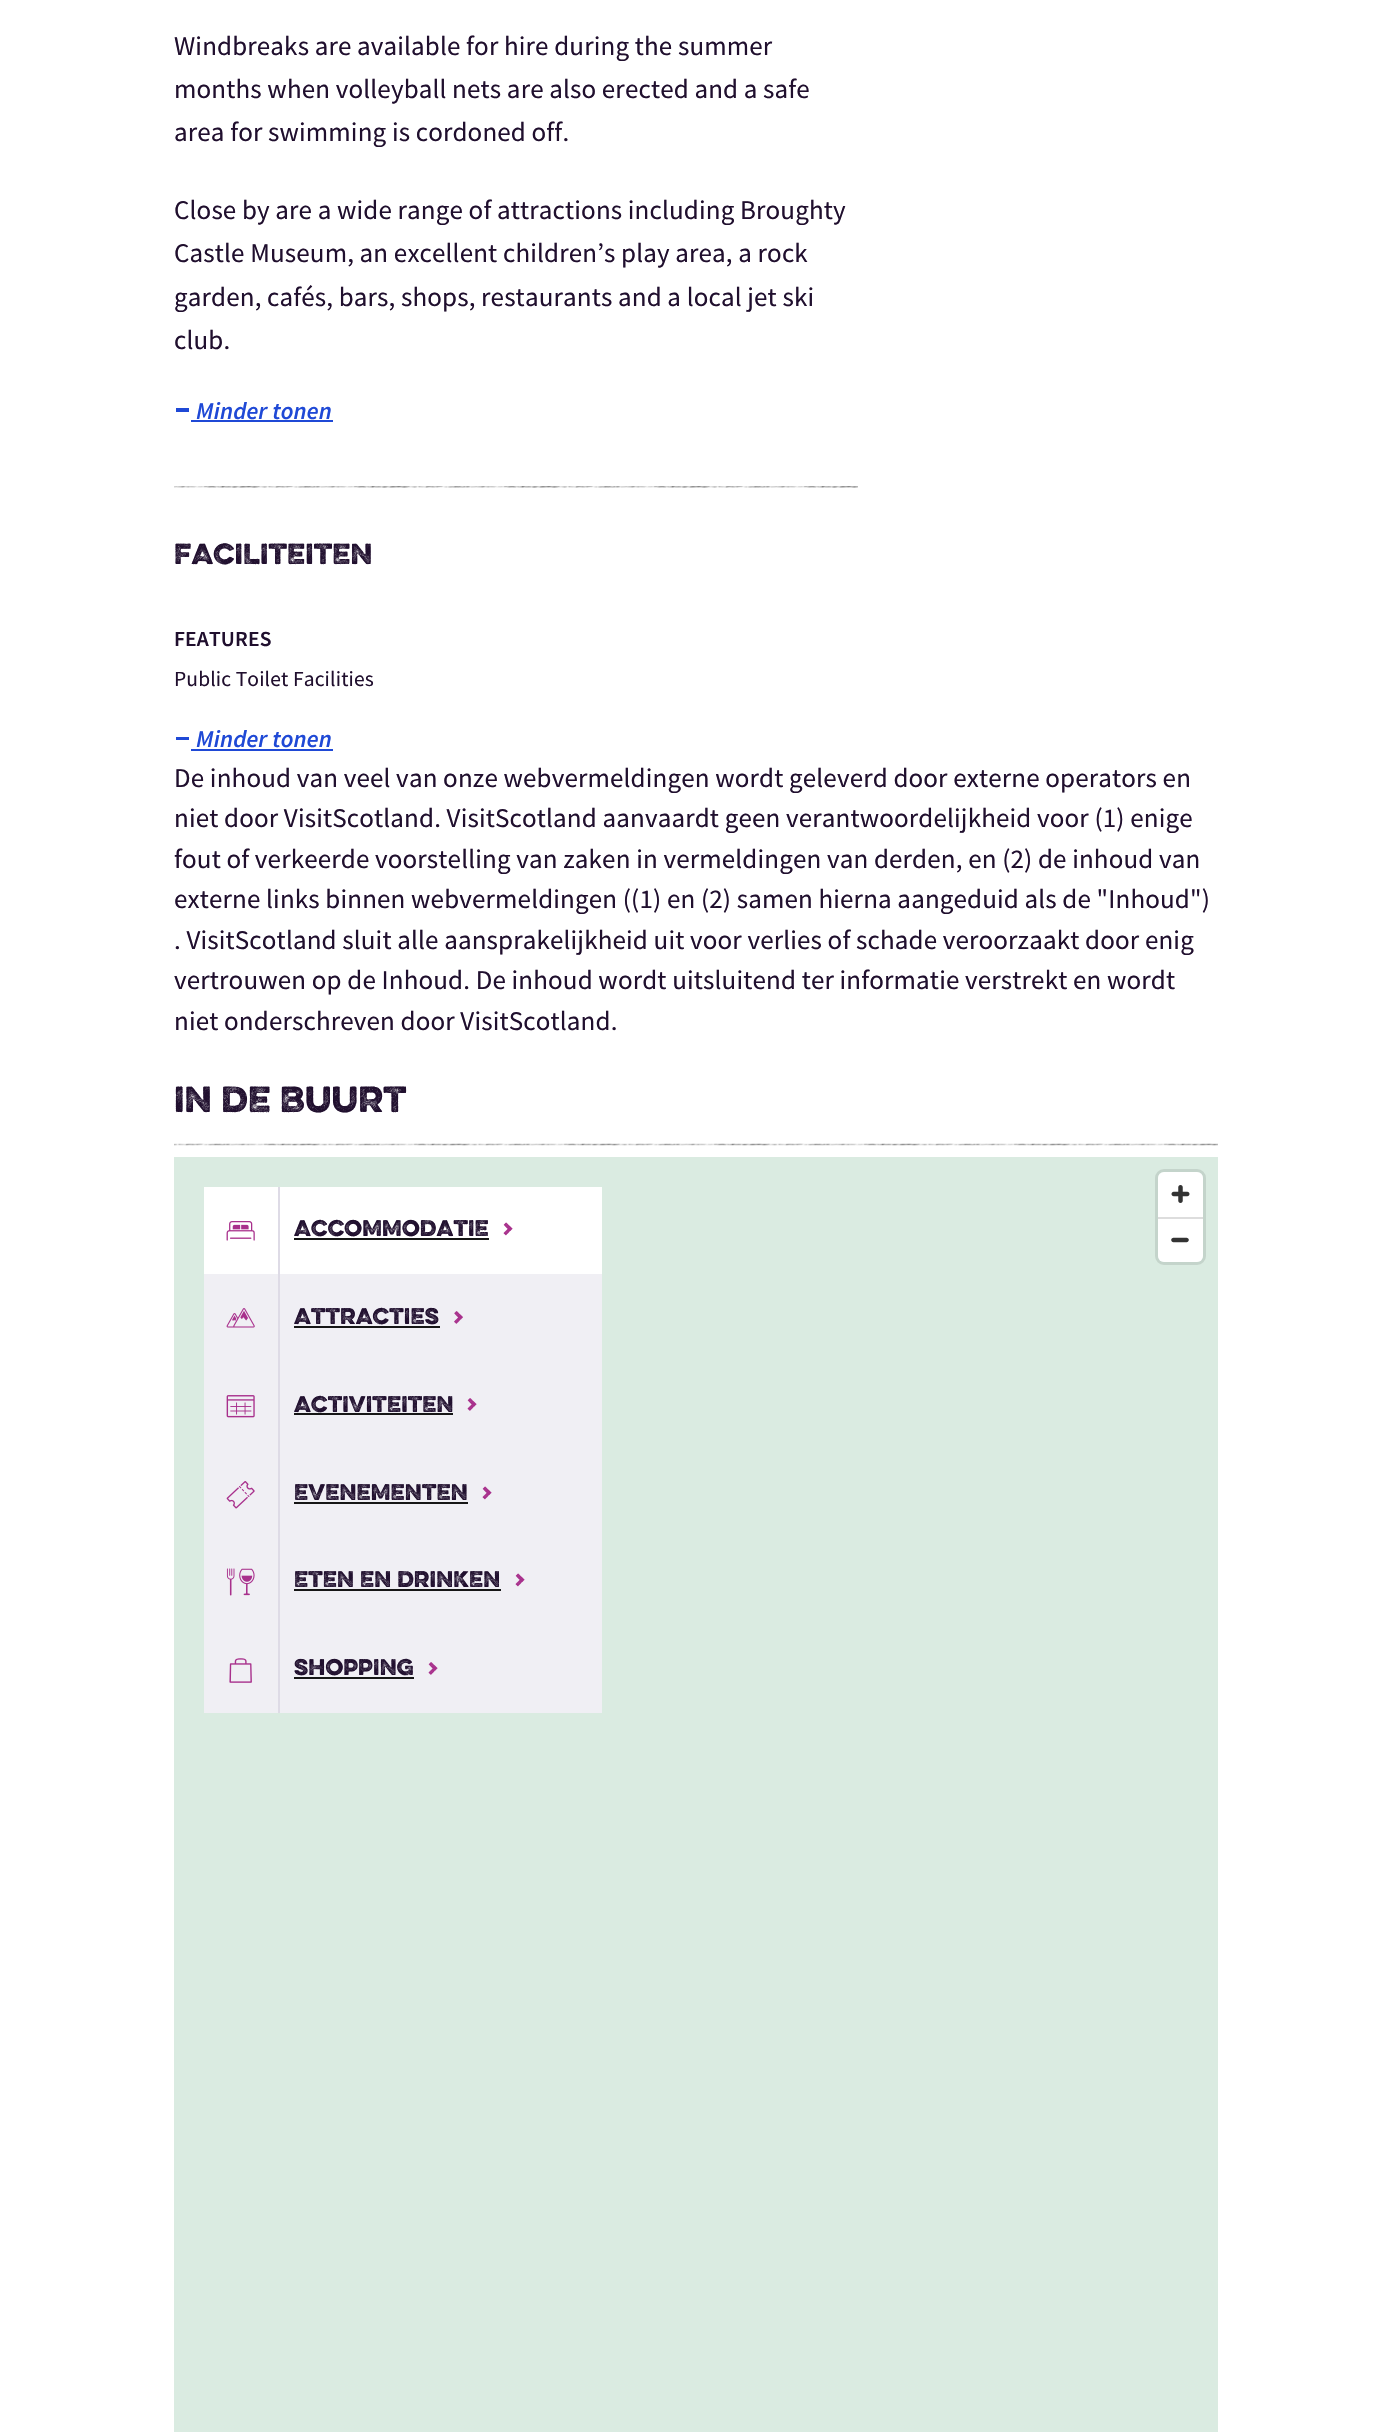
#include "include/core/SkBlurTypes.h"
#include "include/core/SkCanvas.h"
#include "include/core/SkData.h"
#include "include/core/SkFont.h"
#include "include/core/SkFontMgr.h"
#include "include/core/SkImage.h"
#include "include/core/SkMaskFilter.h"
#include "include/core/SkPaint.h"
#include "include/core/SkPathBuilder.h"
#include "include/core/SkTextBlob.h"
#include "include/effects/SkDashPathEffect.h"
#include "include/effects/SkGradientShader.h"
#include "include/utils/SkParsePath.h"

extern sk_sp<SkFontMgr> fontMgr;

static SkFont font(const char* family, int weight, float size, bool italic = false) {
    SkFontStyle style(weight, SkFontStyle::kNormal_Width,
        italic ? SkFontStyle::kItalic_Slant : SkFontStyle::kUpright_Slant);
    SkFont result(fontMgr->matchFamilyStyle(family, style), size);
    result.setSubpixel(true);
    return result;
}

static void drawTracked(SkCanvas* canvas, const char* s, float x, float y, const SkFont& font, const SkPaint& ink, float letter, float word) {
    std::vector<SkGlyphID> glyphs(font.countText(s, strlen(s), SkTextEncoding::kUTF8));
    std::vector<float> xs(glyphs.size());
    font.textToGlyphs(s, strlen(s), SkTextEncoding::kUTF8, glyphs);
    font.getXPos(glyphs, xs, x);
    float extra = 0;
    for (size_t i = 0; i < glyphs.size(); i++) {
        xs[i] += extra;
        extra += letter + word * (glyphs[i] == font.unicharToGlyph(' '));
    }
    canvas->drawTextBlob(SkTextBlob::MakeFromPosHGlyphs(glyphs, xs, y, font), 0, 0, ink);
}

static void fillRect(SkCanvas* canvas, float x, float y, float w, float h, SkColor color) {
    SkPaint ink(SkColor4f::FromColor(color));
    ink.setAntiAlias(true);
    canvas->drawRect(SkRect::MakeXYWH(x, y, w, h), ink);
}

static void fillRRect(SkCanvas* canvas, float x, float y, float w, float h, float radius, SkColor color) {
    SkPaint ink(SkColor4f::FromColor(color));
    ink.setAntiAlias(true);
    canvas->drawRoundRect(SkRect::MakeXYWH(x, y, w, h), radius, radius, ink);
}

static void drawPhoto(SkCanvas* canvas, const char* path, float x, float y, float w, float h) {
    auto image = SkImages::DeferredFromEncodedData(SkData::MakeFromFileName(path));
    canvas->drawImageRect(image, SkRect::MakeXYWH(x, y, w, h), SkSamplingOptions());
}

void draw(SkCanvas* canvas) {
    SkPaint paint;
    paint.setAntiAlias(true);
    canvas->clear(0xFFFFFFFF);
    SkFont font1 = font("Source Sans Pro", 400, 27);
    paint.setColor(0xFF200F2E);
    drawTracked(canvas, "Windbreaks are available for hire during the summer", 174, 55, font1, paint, 0.15f, 0);
    drawTracked(canvas, "months when volleyball nets are also erected and a safe", 174, 98, font1, paint, 0.15f, 0);
    drawTracked(canvas, "area for swimming is cordoned off.", 174, 141, font1, paint, 0.15f, 0);
    drawTracked(canvas, "Close by are a wide range of attractions including Broughty", 174, 219, font1, paint, 0.15f, 0);
    drawTracked(canvas, "Castle Museum, an excellent children’s play area, a rock", 174, 262, font1, paint, 0.15f, 0);
    drawTracked(canvas, "garden, cafés, bars, shops, restaurants and a local jet ski", 174, 306, font1, paint, 0.15f, 0);
    drawTracked(canvas, "club.", 174, 349, font1, paint, 0.15f, 0);
    fillRect(canvas, 176, 408, 13, 4, 0xFF1F49D6);
    SkFont font2 = font("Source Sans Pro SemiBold", 600, 24.25f, true);
    paint.setColor(0xFF1F49D6);
    drawTracked(canvas, "Minder tonen", 196, 419, font2, paint, 0.15f, 0);
    fillRect(canvas, 191, 420, 142, 2, 0xFF1F49D6);
    drawPhoto(canvas, "assets/img1.png", 174, 486, 684, 2);
    SkFont font3 = font("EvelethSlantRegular", 400, 26);
    paint.setColor(0xFF200F2E);
    drawTracked(canvas, "FACILITEITEN", 174, 564, font3, paint, 0.15f, 0);
    SkFont font4 = font("Source Sans Pro SemiBold", 600, 21.5f);
    drawTracked(canvas, "FEATURES", 174, 646, font4, paint, 0.15f, 0);
    SkFont font5 = font("Source Sans Pro", 400, 21.5f);
    drawTracked(canvas, "Public Toilet Facilities", 174, 686, font5, paint, 0.15f, 0);
    fillRect(canvas, 176, 737, 13, 3, 0xFF1F49D6);
    paint.setColor(0xFF1F49D6);
    drawTracked(canvas, "Minder tonen", 196, 747, font2, paint, 0.15f, 0);
    fillRect(canvas, 191, 749, 142, 2, 0xFF1F49D6);
    paint.setColor(0xFF200F2E);
    drawTracked(canvas, "De inhoud van veel van onze webvermeldingen wordt geleverd door externe operators en", 174, 787, font1, paint, 0.15f, 0);
    drawTracked(canvas, "niet door VisitScotland. VisitScotland aanvaardt geen verantwoordelijkheid voor (1) enige", 174, 827, font1, paint, 0.15f, 0);
    drawTracked(canvas, "fout of verkeerde voorstelling van zaken in vermeldingen van derden, en (2) de inhoud van", 174, 868, font1, paint, 0.15f, 0);
    drawTracked(canvas, "externe links binnen webvermeldingen ((1) en (2) samen hierna aangeduid als de \"Inhoud\")", 174, 908, font1, paint, 0.15f, 0);
    drawTracked(canvas, ". VisitScotland sluit alle aansprakelijkheid uit voor verlies of schade veroorzaakt door enig", 174, 949, font1, paint, 0.15f, 0);
    drawTracked(canvas, "vertrouwen op de Inhoud. De inhoud wordt uitsluitend ter informatie verstrekt en wordt", 174, 989, font1, paint, 0.15f, 0);
    drawTracked(canvas, "niet onderschreven door VisitScotland.", 174, 1030, font1, paint, 0.15f, 0);
    SkFont font6 = font("EvelethSlantRegular", 400, 32.5f);
    drawTracked(canvas, "IN DE BUURT", 174, 1112, font6, paint, 0.15f, 0);
    drawPhoto(canvas, "assets/img2.png", 174, 1143, 1044, 3);
    fillRect(canvas, 174, 1157, 1044, 1275, 0xFFDAEBE1);
    fillRect(canvas, 204, 1187, 398, 87, 0xFFFFFFFF);
    fillRect(canvas, 278, 1187, 2, 87, 0xFFDEDBE6);
    drawPhoto(canvas, "assets/img3.png", 226, 1221, 29, 20);
    SkFont font7 = font("EvelethSlantRegular", 400, 20.25f);
    drawTracked(canvas, "ACCOMMODATIE", 294, 1236, font7, paint, 0.15f, 0);
    fillRect(canvas, 294, 1238, 195, 2, 0xFF161616);
    drawPhoto(canvas, "assets/img4.png", 503, 1222, 10, 14);
    fillRect(canvas, 204, 1274, 398, 439, 0xFFF0EFF4);
    fillRect(canvas, 278, 1274, 2, 439, 0xFFDEDBE6);
    drawPhoto(canvas, "assets/img5.png", 226, 1308, 29, 20);
    drawTracked(canvas, "ATTRACTIES", 294, 1324, font7, paint, 0.15f, 0);
    fillRect(canvas, 294, 1326, 146, 2, 0xFF161616);
    drawPhoto(canvas, "assets/img6.png", 454, 1311, 9, 13);
    drawPhoto(canvas, "assets/img7.png", 226, 1395, 29, 23);
    drawTracked(canvas, "ACTIVITEITEN", 294, 1412, font7, paint, 0.15f, 0);
    fillRect(canvas, 294, 1413, 159, 2, 0xFF161616);
    drawPhoto(canvas, "assets/img8.png", 467, 1398, 10, 13);
    drawPhoto(canvas, "assets/img9.png", 226, 1481, 29, 28);
    drawTracked(canvas, "EVENEMENTEN", 294, 1500, font7, paint, 0.15f, 0);
    fillRect(canvas, 294, 1502, 174, 2, 0xFF161616);
    drawPhoto(canvas, "assets/img10.png", 482, 1486, 10, 14);
    drawPhoto(canvas, "assets/img11.png", 226, 1568, 29, 28);
    drawTracked(canvas, "ETEN EN DRINKEN", 294, 1587, font7, paint, 0.15f, 0);
    fillRect(canvas, 294, 1589, 207, 2, 0xFF161616);
    drawPhoto(canvas, "assets/img10.png", 515, 1573, 10, 14);
    drawPhoto(canvas, "assets/img12.png", 229, 1658, 23, 25);
    drawTracked(canvas, "SHOPPING", 294, 1675, font7, paint, 0.15f, 0);
    fillRect(canvas, 294, 1677, 120, 2, 0xFF161616);
    drawPhoto(canvas, "assets/img8.png", 428, 1662, 10, 13);
    paint.setStroke(true);
    paint.setStrokeWidth(3);
    paint.setColor(0xFFC4D4CB);
    canvas->drawRoundRect(SkRect::MakeXYWH(1156.5f, 1170.5f, 48, 93), 7.5f, 7.5f, paint);
    fillRRect(canvas, 1158, 1172, 45, 90, 6, 0xFFFFFFFF);
    drawPhoto(canvas, "assets/img13.png", 1171, 1185, 19, 18);
    drawPhoto(canvas, "assets/img14.png", 1171, 1237, 18, 6);
    fillRect(canvas, 1158, 1217, 45, 2, 0xFFDDDDDD);
}
